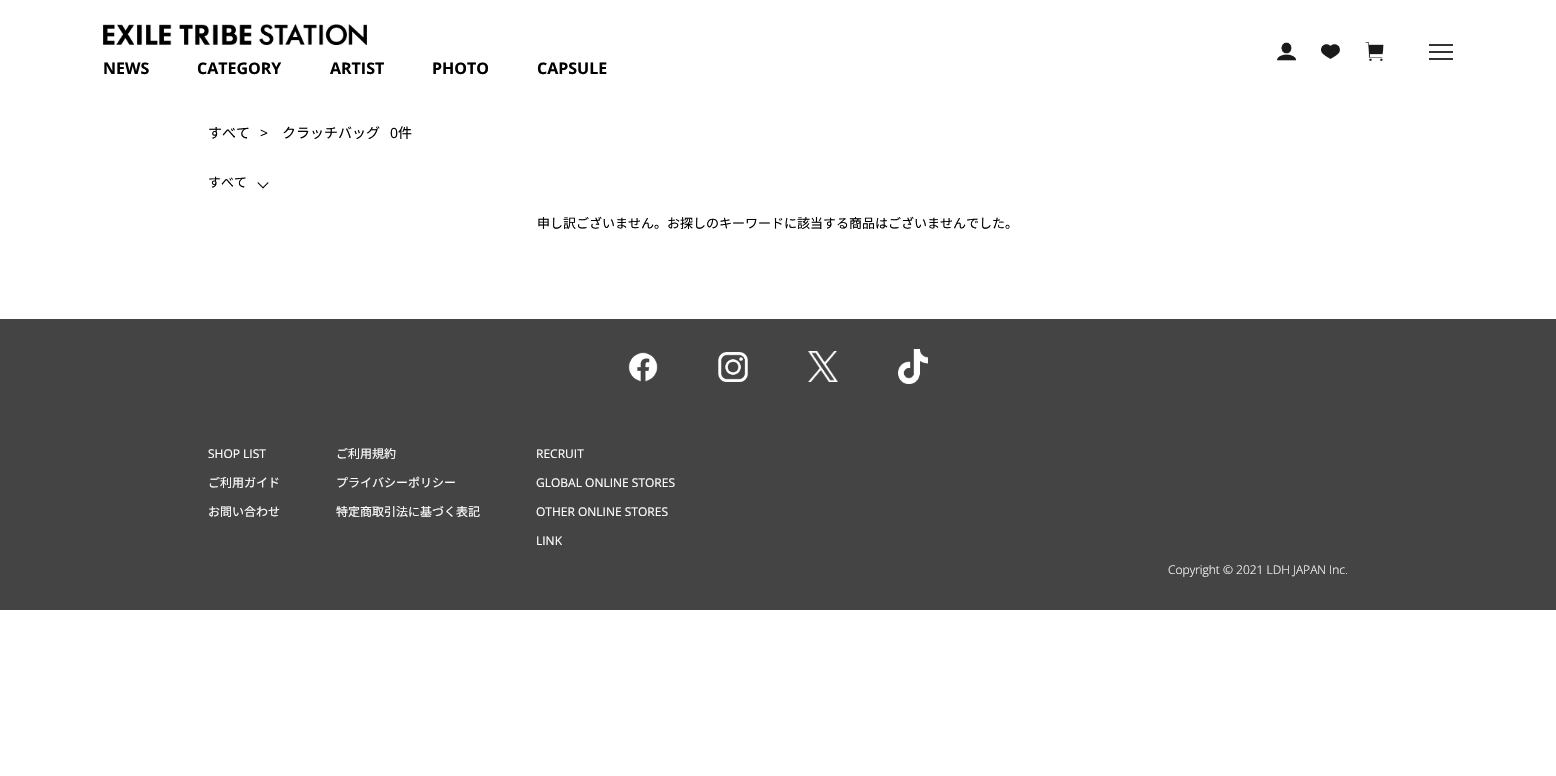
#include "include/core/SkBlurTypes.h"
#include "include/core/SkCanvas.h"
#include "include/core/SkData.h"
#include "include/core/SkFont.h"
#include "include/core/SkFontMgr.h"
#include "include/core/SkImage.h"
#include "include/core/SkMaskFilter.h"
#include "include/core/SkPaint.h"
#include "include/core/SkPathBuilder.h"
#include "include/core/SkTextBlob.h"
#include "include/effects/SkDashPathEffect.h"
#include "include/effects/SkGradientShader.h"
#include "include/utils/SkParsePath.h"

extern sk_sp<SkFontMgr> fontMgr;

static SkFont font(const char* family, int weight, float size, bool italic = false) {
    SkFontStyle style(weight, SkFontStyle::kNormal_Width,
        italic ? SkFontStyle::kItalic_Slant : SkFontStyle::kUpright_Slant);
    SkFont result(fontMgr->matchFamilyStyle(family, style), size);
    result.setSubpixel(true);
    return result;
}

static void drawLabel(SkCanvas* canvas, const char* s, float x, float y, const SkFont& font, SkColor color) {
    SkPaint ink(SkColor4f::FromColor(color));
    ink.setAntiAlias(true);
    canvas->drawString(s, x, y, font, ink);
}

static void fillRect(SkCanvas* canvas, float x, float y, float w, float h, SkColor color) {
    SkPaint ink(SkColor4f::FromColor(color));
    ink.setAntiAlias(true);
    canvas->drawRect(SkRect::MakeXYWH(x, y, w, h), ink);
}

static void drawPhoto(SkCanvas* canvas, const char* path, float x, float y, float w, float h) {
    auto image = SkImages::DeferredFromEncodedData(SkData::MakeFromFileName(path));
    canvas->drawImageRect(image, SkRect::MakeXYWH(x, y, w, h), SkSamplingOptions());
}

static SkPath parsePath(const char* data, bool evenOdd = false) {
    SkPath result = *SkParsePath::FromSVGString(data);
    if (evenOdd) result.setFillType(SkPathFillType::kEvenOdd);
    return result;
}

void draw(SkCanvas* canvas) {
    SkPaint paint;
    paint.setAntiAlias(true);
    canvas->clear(0xFFFFFFFF);
    drawPhoto(canvas, "assets/img1.png", 1277, 42, 19, 19);
    drawPhoto(canvas, "assets/img2.png", 1321, 44, 19, 15);
    drawPhoto(canvas, "assets/img3.png", 1365, 42, 19, 19);
    fillRect(canvas, 1429, 44, 24, 2, 0xFF333333);
    fillRect(canvas, 1429, 51, 24, 2, 0xFF333333);
    fillRect(canvas, 1429, 58, 24, 2, 0xFF333333);
    drawPhoto(canvas, "assets/img4.png", 103, 24, 264, 21);
    SkFont font1 = font("Open Sans", 700, 16);
    drawLabel(canvas, "NEWS", 103, 74, font1, 0xFF000000);
    drawLabel(canvas, "CATEGORY", 197, 74, font1, 0xFF000000);
    drawLabel(canvas, "ARTIST", 330, 74, font1, 0xFF000000);
    drawLabel(canvas, "PHOTO", 432, 74, font1, 0xFF000000);
    drawLabel(canvas, "CAPSULE", 537, 74, font1, 0xFF000000);
    SkFont font2 = font("Noto Sans JP", 400, 14);
    drawLabel(canvas, "すべて", 208, 138, font2, 0xFF000000);
    SkFont font3 = font("Open Sans", 400, 14);
    drawLabel(canvas, ">", 260, 138, font3, 0xFF000000);
    drawLabel(canvas, "クラッチバッグ", 282, 138, font2, 0xFF000000);
    drawLabel(canvas, "0", 390, 138, font3, 0xFF000000);
    drawLabel(canvas, "件", 398, 138, font2, 0xFF000000);
    SkFont font4 = font("Noto Sans JP", 400, 13);
    drawLabel(canvas, "すべて", 208, 187, font4, 0xFF000000);
    paint.setColor(0xFF000000);
    canvas->drawPath(parsePath("M268.5 183L263 188.5L262.5 187.5L268 182Z"), paint);
    canvas->drawPath(parsePath("M263.5 187.5L263 188.5L257.5 183L258 182Z"), paint);
    drawLabel(canvas, "申し訳ございません。お探しのキーワードに該当する商品はございませんでした。", 537, 228, font4, 0xFF000000);
    fillRect(canvas, 0, 319, 1556, 291, 0xFF444444);
    drawPhoto(canvas, "assets/img5.png", 628, 352, 30, 30);
    drawPhoto(canvas, "assets/img6.png", 718, 352, 30, 30);
    drawPhoto(canvas, "assets/img7.png", 808, 351, 30, 31);
    drawPhoto(canvas, "assets/img8.png", 898, 349, 30, 35);
    SkFont font5 = font("Open Sans", 400, 12);
    drawLabel(canvas, "SHOP LIST", 208, 458, font5, 0xFFFFFFFF);
    SkFont font6 = font("Noto Sans JP", 400, 12);
    drawLabel(canvas, "ご利用ガイド", 208, 487, font6, 0xFFFFFFFF);
    drawLabel(canvas, "お問い合わせ", 208, 516, font6, 0xFFFFFFFF);
    drawLabel(canvas, "ご利用規約", 336, 458, font6, 0xFFFFFFFF);
    drawLabel(canvas, "プライバシーポリシー", 336, 487, font6, 0xFFFFFFFF);
    drawLabel(canvas, "特定商取引法に基づく表記", 336, 516, font6, 0xFFFFFFFF);
    drawLabel(canvas, "RECRUIT", 536, 458, font5, 0xFFFFFFFF);
    drawLabel(canvas, "GLOBAL ONLINE STORES", 536, 487, font5, 0xFFFFFFFF);
    drawLabel(canvas, "OTHER ONLINE STORES", 536, 516, font5, 0xFFFFFFFF);
    drawLabel(canvas, "LINK", 536, 545, font5, 0xFFFFFFFF);
    SkFont font7 = font("Open Sans", 300, 12);
    drawLabel(canvas, "Copyright © 2021 LDH JAPAN Inc.", 1168, 574, font7, 0xFFFFFFFF);
}
